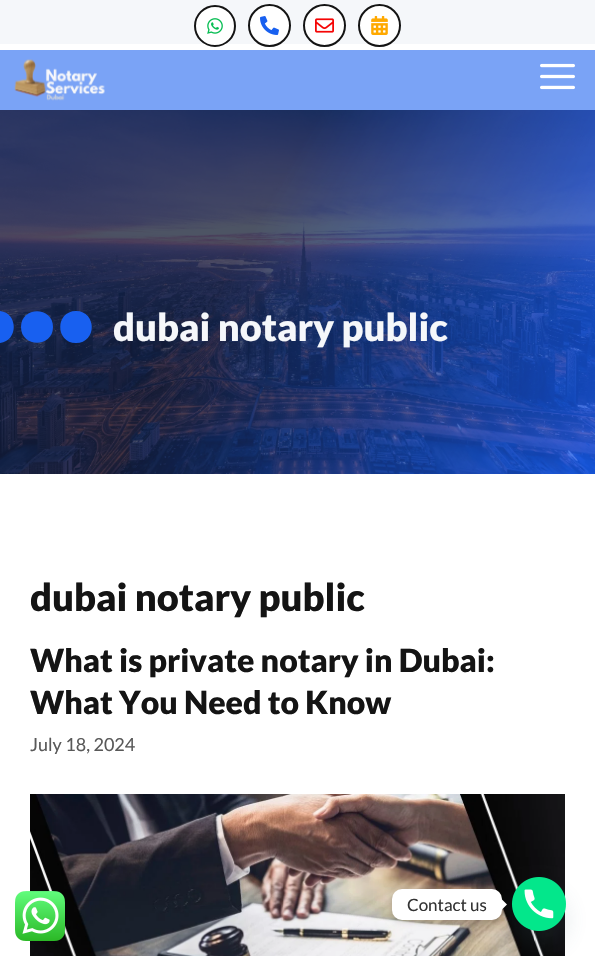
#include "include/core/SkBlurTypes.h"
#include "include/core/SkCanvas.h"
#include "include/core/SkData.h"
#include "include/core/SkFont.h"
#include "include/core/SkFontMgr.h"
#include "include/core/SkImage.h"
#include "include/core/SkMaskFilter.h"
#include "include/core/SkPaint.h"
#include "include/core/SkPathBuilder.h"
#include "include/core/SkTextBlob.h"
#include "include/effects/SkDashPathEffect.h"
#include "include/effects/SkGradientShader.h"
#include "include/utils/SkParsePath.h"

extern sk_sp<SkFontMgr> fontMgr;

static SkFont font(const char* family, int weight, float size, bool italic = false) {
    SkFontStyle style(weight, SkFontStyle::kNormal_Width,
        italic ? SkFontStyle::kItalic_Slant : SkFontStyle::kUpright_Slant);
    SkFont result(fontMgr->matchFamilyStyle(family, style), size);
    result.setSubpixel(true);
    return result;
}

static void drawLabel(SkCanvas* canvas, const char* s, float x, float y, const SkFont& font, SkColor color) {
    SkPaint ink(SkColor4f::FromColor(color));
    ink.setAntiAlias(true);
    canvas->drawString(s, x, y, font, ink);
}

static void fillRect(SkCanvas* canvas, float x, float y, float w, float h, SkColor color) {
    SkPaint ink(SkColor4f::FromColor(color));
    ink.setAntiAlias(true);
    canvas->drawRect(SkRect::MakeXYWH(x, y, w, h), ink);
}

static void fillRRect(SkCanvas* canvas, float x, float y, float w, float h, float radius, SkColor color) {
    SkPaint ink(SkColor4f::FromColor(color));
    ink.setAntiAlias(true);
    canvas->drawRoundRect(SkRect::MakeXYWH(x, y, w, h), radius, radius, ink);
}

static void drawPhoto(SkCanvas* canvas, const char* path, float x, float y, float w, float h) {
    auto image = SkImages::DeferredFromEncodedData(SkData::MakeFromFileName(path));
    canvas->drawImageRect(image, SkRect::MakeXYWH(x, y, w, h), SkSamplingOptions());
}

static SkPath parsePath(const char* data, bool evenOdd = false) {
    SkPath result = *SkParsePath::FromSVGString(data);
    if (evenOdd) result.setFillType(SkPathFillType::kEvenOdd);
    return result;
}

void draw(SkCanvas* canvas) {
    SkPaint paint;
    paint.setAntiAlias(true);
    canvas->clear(0xFFFFFFFF);
    fillRect(canvas, 0, 0, 595, 44, 0xFFF5F7FA);
    paint.setColor(0xFFFFFFFF);
    canvas->drawCircle(215, 26, 20, paint);
    paint.setStroke(true);
    paint.setStrokeWidth(2);
    paint.setColor(0xFF141414);
    canvas->drawCircle(215, 26, 20, paint);
    drawPhoto(canvas, "assets/img1.png", 207, 18, 16, 16);
    paint.setStroke(false);
    paint.setColor(0xFFFFFFFF);
    canvas->drawCircle(269.5f, 25.5f, 20.5f, paint);
    paint.setStroke(true);
    paint.setColor(0xFF141414);
    canvas->drawCircle(269.5f, 25.5f, 20.5f, paint);
    drawPhoto(canvas, "assets/img2.png", 260, 16, 19, 19);
    paint.setStroke(false);
    paint.setColor(0xFFFFFFFF);
    canvas->drawCircle(324.5f, 25.5f, 20.5f, paint);
    paint.setStroke(true);
    paint.setColor(0xFF141414);
    canvas->drawCircle(324.5f, 25.5f, 20.5f, paint);
    drawPhoto(canvas, "assets/img3.png", 315, 18, 19, 15);
    paint.setStroke(false);
    paint.setColor(0xFFFFFFFF);
    canvas->drawCircle(379.5f, 25.5f, 20.5f, paint);
    paint.setStroke(true);
    paint.setColor(0xFF141414);
    canvas->drawCircle(379.5f, 25.5f, 20.5f, paint);
    drawPhoto(canvas, "assets/img4.png", 371, 16, 17, 19);
    fillRect(canvas, 0, 50, 595, 60, 0xFF7AA3F6);
    drawPhoto(canvas, "assets/img5.png", 14, 59, 91, 42);
    drawPhoto(canvas, "assets/img6.png", 540, 63, 35, 27);
    paint.setStroke(false);
    {
        const SkColor colors[] = {0xFF141F33, 0xFF1860F0};
        const float stops[] = {0.4f, 1};
        const SkPoint ends[] = {{-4.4f, 118}, {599, 466}};
        paint.setShader(SkGradientShader::MakeLinear(ends, colors, stops, 2, SkTileMode::kClamp));
        paint.setAlpha(255);
    }
    canvas->drawRect(SkRect::MakeXYWH(0, 110, 595, 364), paint);
    drawPhoto(canvas, "assets/img7.png", 0, 110, 595, 364);
    paint.setShader(nullptr);
    paint.setColor(0xFF1860F0);
    canvas->drawPath(parsePath("M53 327C53 348 21 348 21 327C21 306 53 306 53 327ZM76 311C55 311 55 343 76 343C97 343 97 311 76 311ZM-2 311C-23 311-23 343-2 343C19 343 19 311-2 311Z"), paint);
    SkFont font1 = font("Lato", 900, 38);
    drawLabel(canvas, "dubai notary public", 113, 341, font1, 0xFFF5F7FA);
    drawLabel(canvas, "dubai notary public", 30, 611, font1, 0xFF141414);
    SkFont font2 = font("Lato", 900, 32);
    drawLabel(canvas, "What is private notary in Dubai:", 30, 672, font2, 0xFF141414);
    drawLabel(canvas, "What You Need to Know", 30, 714, font2, 0xFF141414);
    SkFont font3 = font("Lato", 400, 18);
    drawLabel(canvas, "July 18, 2024", 30, 751, font3, 0xFF595959);
    drawPhoto(canvas, "assets/img8.png", 30, 794, 535, 162);
    drawPhoto(canvas, "assets/img9.png", 15, 891, 50, 50);
    paint.setColor(0x2949687E);
    paint.setMaskFilter(SkMaskFilter::MakeBlur(kNormal_SkBlurStyle, 12));
    canvas->drawRoundRect(SkRect::MakeXYWH(512, 893, 54, 54), 27, 27, paint);
    paint.setMaskFilter(nullptr);
    drawPhoto(canvas, "assets/img10.png", 512, 877, 54, 54);
    paint.setColor(0x26000000);
    paint.setMaskFilter(SkMaskFilter::MakeBlur(kNormal_SkBlurStyle, 4));
    canvas->drawRoundRect(SkRect::MakeXYWH(392, 890, 110, 31), 10, 10, paint);
    paint.setMaskFilter(nullptr);
    fillRRect(canvas, 392, 889, 110, 31, 10, 0xFFFFFFFF);
    SkFont font4 = font("Lato", 400, 17);
    drawLabel(canvas, "Contact us", 407, 911, font4, 0xFF333333);
    paint.setColor(0xFFFFFFFF);
    canvas->drawPath(parsePath("M502 909.5V899.5L507 904.5Z"), paint);
}
